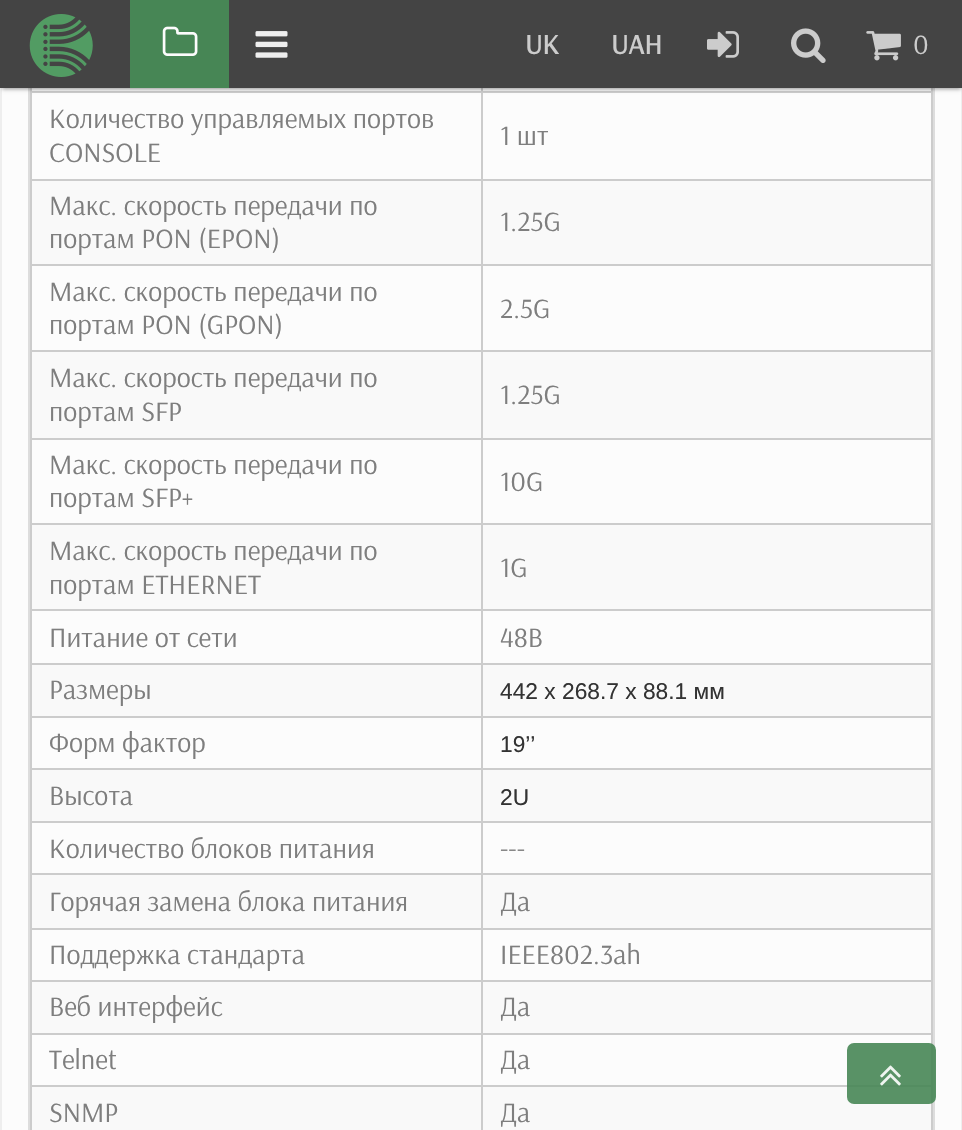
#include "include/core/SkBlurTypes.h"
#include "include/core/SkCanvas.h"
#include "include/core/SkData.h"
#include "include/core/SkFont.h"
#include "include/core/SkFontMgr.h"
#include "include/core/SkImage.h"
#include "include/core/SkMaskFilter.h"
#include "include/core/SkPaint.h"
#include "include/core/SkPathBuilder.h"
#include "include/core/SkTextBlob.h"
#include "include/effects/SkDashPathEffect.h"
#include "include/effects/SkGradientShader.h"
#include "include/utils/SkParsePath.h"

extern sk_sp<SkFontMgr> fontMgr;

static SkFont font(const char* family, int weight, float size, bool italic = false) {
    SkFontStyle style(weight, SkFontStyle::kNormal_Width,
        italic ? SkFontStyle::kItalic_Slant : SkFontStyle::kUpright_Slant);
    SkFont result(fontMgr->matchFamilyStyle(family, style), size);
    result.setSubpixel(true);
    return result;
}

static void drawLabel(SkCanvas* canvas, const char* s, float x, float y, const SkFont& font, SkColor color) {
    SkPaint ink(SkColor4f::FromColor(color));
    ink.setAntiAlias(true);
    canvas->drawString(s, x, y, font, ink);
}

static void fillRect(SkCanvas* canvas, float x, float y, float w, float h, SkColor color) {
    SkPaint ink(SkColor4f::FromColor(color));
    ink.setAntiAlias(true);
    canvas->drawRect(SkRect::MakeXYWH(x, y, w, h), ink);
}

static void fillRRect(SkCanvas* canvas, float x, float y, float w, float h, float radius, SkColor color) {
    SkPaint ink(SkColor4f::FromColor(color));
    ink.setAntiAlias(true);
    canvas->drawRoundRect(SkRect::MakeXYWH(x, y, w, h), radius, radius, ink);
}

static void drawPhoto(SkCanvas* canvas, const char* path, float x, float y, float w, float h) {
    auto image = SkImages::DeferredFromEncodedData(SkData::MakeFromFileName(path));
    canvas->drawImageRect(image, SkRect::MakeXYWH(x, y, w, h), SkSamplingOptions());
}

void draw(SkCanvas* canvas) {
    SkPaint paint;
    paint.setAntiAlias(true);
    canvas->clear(0xFFFCFCFC);
    paint.setStroke(true);
    paint.setStrokeWidth(2);
    paint.setColor(0xFFEEEEEE);
    canvas->drawRect(SkRect::MakeXYWH(1, -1, 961, 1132), paint);
    paint.setColor(0xFFDDDDDD);
    canvas->drawRect(SkRect::MakeXYWH(29, -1, 905, 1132), paint);
    fillRect(canvas, 32, 88, 899, 3, 0xFFF9F9F9);
    fillRect(canvas, 32, 181, 899, 83, 0xFFF9F9F9);
    fillRect(canvas, 32, 352, 899, 86, 0xFFF9F9F9);
    fillRect(canvas, 32, 525, 899, 84, 0xFFF9F9F9);
    fillRect(canvas, 32, 665, 899, 51, 0xFFF9F9F9);
    fillRect(canvas, 32, 770, 899, 51, 0xFFF9F9F9);
    fillRect(canvas, 32, 875, 899, 53, 0xFFF9F9F9);
    fillRect(canvas, 32, 982, 899, 51, 0xFFF9F9F9);
    fillRect(canvas, 32, 1087, 899, 43, 0xFFF9F9F9);
    fillRect(canvas, 481, 1085, 2, 45, 0xFFCCCCCC);
    fillRect(canvas, 931, 88, 2, 1042, 0xFFCCCCCC);
    fillRect(canvas, 481, 1085, 452, 2, 0xFFCCCCCC);
    fillRect(canvas, 481, 1033, 2, 54, 0xFFCCCCCC);
    fillRect(canvas, 481, 1033, 452, 2, 0xFFCCCCCC);
    fillRect(canvas, 481, 980, 2, 54, 0xFFCCCCCC);
    fillRect(canvas, 481, 980, 452, 2, 0xFFCCCCCC);
    fillRect(canvas, 481, 928, 2, 54, 0xFFCCCCCC);
    fillRect(canvas, 481, 928, 452, 2, 0xFFCCCCCC);
    fillRect(canvas, 481, 873, 2, 56, 0xFFCCCCCC);
    fillRect(canvas, 481, 873, 452, 2, 0xFFCCCCCC);
    fillRect(canvas, 481, 821, 2, 54, 0xFFCCCCCC);
    fillRect(canvas, 481, 821, 452, 2, 0xFFCCCCCC);
    fillRect(canvas, 481, 768, 2, 55, 0xFFCCCCCC);
    fillRect(canvas, 481, 768, 452, 2, 0xFFCCCCCC);
    fillRect(canvas, 481, 716, 2, 54, 0xFFCCCCCC);
    fillRect(canvas, 481, 716, 452, 2, 0xFFCCCCCC);
    fillRect(canvas, 481, 663, 2, 55, 0xFFCCCCCC);
    fillRect(canvas, 481, 663, 452, 2, 0xFFCCCCCC);
    fillRect(canvas, 481, 609, 2, 56, 0xFFCCCCCC);
    fillRect(canvas, 481, 609, 452, 2, 0xFFCCCCCC);
    fillRect(canvas, 481, 523, 2, 88, 0xFFCCCCCC);
    fillRect(canvas, 481, 523, 452, 2, 0xFFCCCCCC);
    fillRect(canvas, 481, 438, 2, 87, 0xFFCCCCCC);
    fillRect(canvas, 481, 438, 452, 2, 0xFFCCCCCC);
    fillRect(canvas, 481, 350, 2, 89, 0xFFCCCCCC);
    fillRect(canvas, 481, 350, 452, 2, 0xFFCCCCCC);
    fillRect(canvas, 481, 264, 2, 88, 0xFFCCCCCC);
    fillRect(canvas, 481, 264, 452, 2, 0xFFCCCCCC);
    fillRect(canvas, 481, 179, 2, 87, 0xFFCCCCCC);
    fillRect(canvas, 481, 179, 452, 2, 0xFFCCCCCC);
    fillRect(canvas, 481, 91, 2, 89, 0xFFCCCCCC);
    fillRect(canvas, 481, 91, 452, 2, 0xFFCCCCCC);
    fillRect(canvas, 481, 88, 2, 5, 0xFFCCCCCC);
    fillRect(canvas, 30, 1085, 2, 45, 0xFFCCCCCC);
    fillRect(canvas, 30, 1085, 453, 2, 0xFFCCCCCC);
    fillRect(canvas, 30, 1033, 2, 54, 0xFFCCCCCC);
    fillRect(canvas, 30, 1033, 453, 2, 0xFFCCCCCC);
    fillRect(canvas, 30, 980, 2, 54, 0xFFCCCCCC);
    fillRect(canvas, 30, 980, 453, 2, 0xFFCCCCCC);
    fillRect(canvas, 30, 928, 2, 54, 0xFFCCCCCC);
    fillRect(canvas, 30, 928, 453, 2, 0xFFCCCCCC);
    fillRect(canvas, 30, 873, 2, 56, 0xFFCCCCCC);
    fillRect(canvas, 30, 873, 453, 2, 0xFFCCCCCC);
    fillRect(canvas, 30, 821, 2, 54, 0xFFCCCCCC);
    fillRect(canvas, 30, 821, 453, 2, 0xFFCCCCCC);
    fillRect(canvas, 30, 768, 2, 55, 0xFFCCCCCC);
    fillRect(canvas, 30, 768, 453, 2, 0xFFCCCCCC);
    fillRect(canvas, 30, 716, 2, 54, 0xFFCCCCCC);
    fillRect(canvas, 30, 716, 453, 2, 0xFFCCCCCC);
    fillRect(canvas, 30, 663, 2, 55, 0xFFCCCCCC);
    fillRect(canvas, 30, 663, 453, 2, 0xFFCCCCCC);
    fillRect(canvas, 30, 609, 2, 56, 0xFFCCCCCC);
    fillRect(canvas, 30, 609, 453, 2, 0xFFCCCCCC);
    fillRect(canvas, 30, 523, 2, 88, 0xFFCCCCCC);
    fillRect(canvas, 30, 523, 453, 2, 0xFFCCCCCC);
    fillRect(canvas, 30, 438, 2, 87, 0xFFCCCCCC);
    fillRect(canvas, 30, 438, 453, 2, 0xFFCCCCCC);
    fillRect(canvas, 30, 350, 2, 89, 0xFFCCCCCC);
    fillRect(canvas, 30, 350, 453, 2, 0xFFCCCCCC);
    fillRect(canvas, 30, 264, 2, 88, 0xFFCCCCCC);
    fillRect(canvas, 30, 264, 453, 2, 0xFFCCCCCC);
    fillRect(canvas, 30, 179, 2, 87, 0xFFCCCCCC);
    fillRect(canvas, 30, 179, 453, 2, 0xFFCCCCCC);
    fillRect(canvas, 30, 91, 2, 89, 0xFFCCCCCC);
    fillRect(canvas, 30, 91, 453, 2, 0xFFCCCCCC);
    fillRect(canvas, 30, 88, 2, 5, 0xFFCCCCCC);
    paint.setStroke(false);
    paint.setColor(0x66000000);
    paint.setMaskFilter(SkMaskFilter::MakeBlur(kNormal_SkBlurStyle, 2));
    canvas->drawRect(SkRect::MakeXYWH(2, 5, 959, 84), paint);
    paint.setMaskFilter(nullptr);
    fillRect(canvas, 0, 0, 962, 88, 0xFF444444);
    drawPhoto(canvas, "assets/img1.png", 29, 14, 64, 63);
    fillRect(canvas, 130, 0, 99, 88, 0xFF478655);
    drawPhoto(canvas, "assets/img2.png", 162, 26, 36, 30);
    drawPhoto(canvas, "assets/img3.png", 255, 31, 33, 27);
    SkFont font1 = font("Arsenal", 700, 28);
    drawLabel(canvas, "UK", 525, 54, font1, 0xFFCCCCCC);
    drawLabel(canvas, "UAH", 611, 54, font1, 0xFFCCCCCC);
    drawPhoto(canvas, "assets/img4.png", 707, 31, 32, 27);
    drawPhoto(canvas, "assets/img5.png", 791, 28, 35, 35);
    drawPhoto(canvas, "assets/img6.png", 866, 31, 35, 30);
    SkFont font2 = font("Arsenal", 400, 28);
    drawLabel(canvas, "0", 913, 54, font2, 0xFFCCCCCC);
    drawLabel(canvas, "Количество управляемых портов", 49, 128, font2, 0xFF7E7E7E);
    drawLabel(canvas, "CONSOLE", 49, 162, font2, 0xFF7E7E7E);
    drawLabel(canvas, "1 шт", 500, 145, font2, 0xFF7E7E7E);
    drawLabel(canvas, "Макс. скорость передачи по", 49, 215, font2, 0xFF7E7E7E);
    drawLabel(canvas, "портам PON (EPON)", 49, 248, font2, 0xFF7E7E7E);
    drawLabel(canvas, "1.25G", 500, 231, font2, 0xFF7E7E7E);
    drawLabel(canvas, "Макс. скорость передачи по", 49, 301, font2, 0xFF7E7E7E);
    drawLabel(canvas, "портам PON (GPON)", 49, 334, font2, 0xFF7E7E7E);
    drawLabel(canvas, "2.5G", 500, 318, font2, 0xFF7E7E7E);
    drawLabel(canvas, "Макс. скорость передачи по", 49, 387, font2, 0xFF7E7E7E);
    drawLabel(canvas, "портам SFP", 49, 421, font2, 0xFF7E7E7E);
    drawLabel(canvas, "1.25G", 500, 404, font2, 0xFF7E7E7E);
    drawLabel(canvas, "Макс. скорость передачи по", 49, 474, font2, 0xFF7E7E7E);
    drawLabel(canvas, "портам SFP+", 49, 507, font2, 0xFF7E7E7E);
    drawLabel(canvas, "10G", 500, 491, font2, 0xFF7E7E7E);
    drawLabel(canvas, "Макс. скорость передачи по", 49, 560, font2, 0xFF7E7E7E);
    drawLabel(canvas, "портам ETHERNET", 49, 594, font2, 0xFF7E7E7E);
    drawLabel(canvas, "1G", 500, 577, font2, 0xFF7E7E7E);
    drawLabel(canvas, "Питание от сети", 49, 647, font2, 0xFF7E7E7E);
    drawLabel(canvas, "48В", 500, 647, font2, 0xFF7E7E7E);
    drawLabel(canvas, "Размеры", 49, 699, font2, 0xFF7E7E7E);
    SkFont font3 = font("Liberation Sans", 400, 22.75f);
    drawLabel(canvas, "442 x 268.7 x 88.1 мм", 500, 699, font3, 0xFF333333);
    drawLabel(canvas, "Форм фактор", 49, 752, font2, 0xFF7E7E7E);
    drawLabel(canvas, "19’’", 500, 752, font3, 0xFF333333);
    drawLabel(canvas, "Высота", 49, 805, font2, 0xFF7E7E7E);
    drawLabel(canvas, "2U", 500, 805, font3, 0xFF333333);
    drawLabel(canvas, "Количество блоков питания", 49, 858, font2, 0xFF7E7E7E);
    drawLabel(canvas, "---", 500, 858, font2, 0xFF7E7E7E);
    drawLabel(canvas, "Горячая замена блока питания", 49, 911, font2, 0xFF7E7E7E);
    drawLabel(canvas, "Да", 500, 911, font2, 0xFF7E7E7E);
    drawLabel(canvas, "Поддержка стандарта", 49, 964, font2, 0xFF7E7E7E);
    drawLabel(canvas, "IEEE802.3ah", 500, 964, font2, 0xFF7E7E7E);
    drawLabel(canvas, "Веб интерфейс", 49, 1016, font2, 0xFF7E7E7E);
    drawLabel(canvas, "Да", 500, 1016, font2, 0xFF7E7E7E);
    drawLabel(canvas, "Telnet", 49, 1069, font2, 0xFF7E7E7E);
    drawLabel(canvas, "Да", 500, 1069, font2, 0xFF7E7E7E);
    drawLabel(canvas, "SNMP", 49, 1122, font2, 0xFF7E7E7E);
    drawLabel(canvas, "Да", 500, 1122, font2, 0xFF7E7E7E);
    fillRRect(canvas, 847, 1043, 89, 61, 7, 0xE6478655);
    drawPhoto(canvas, "assets/img7.png", 880, 1065, 21, 21);
}
